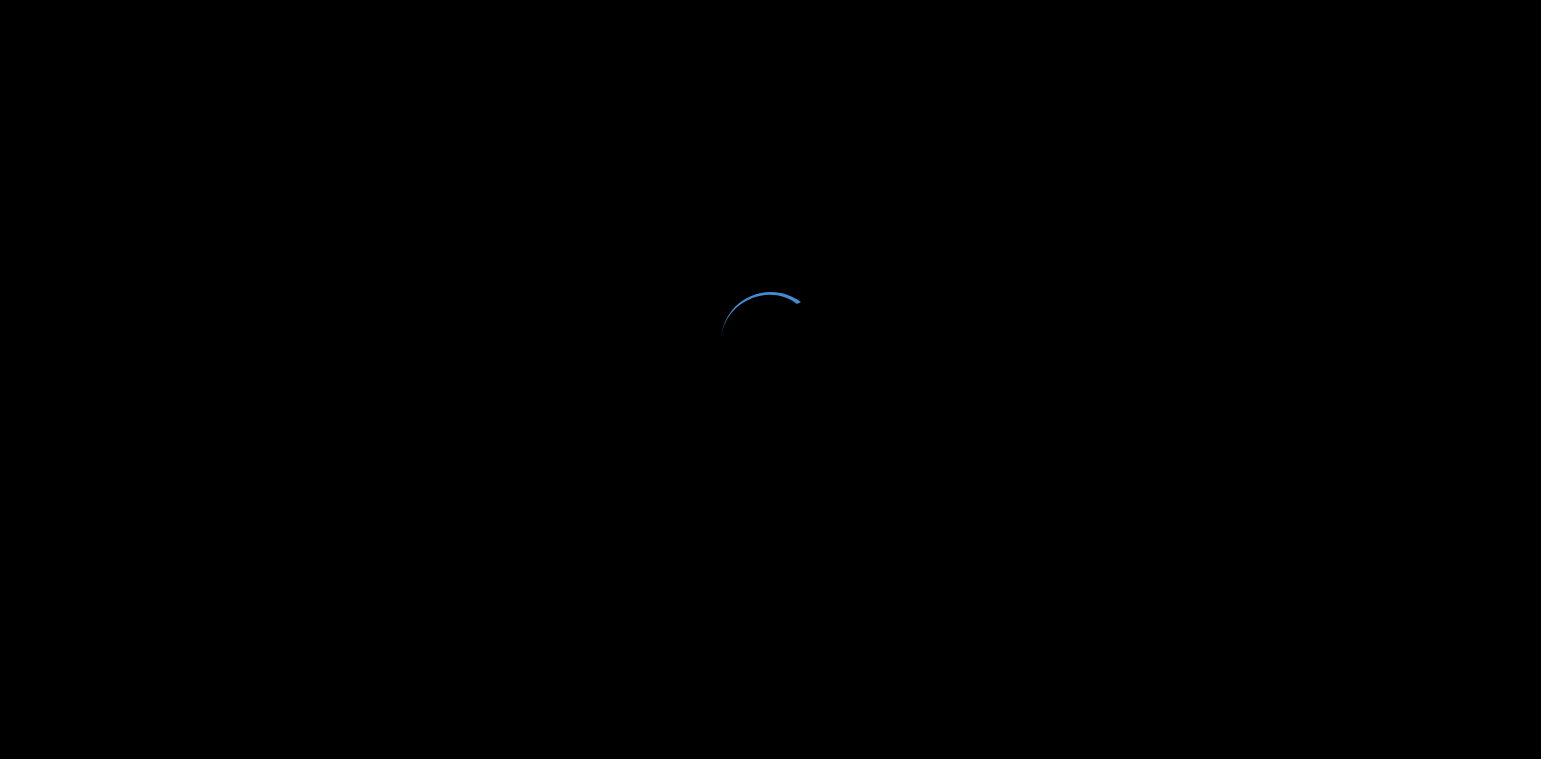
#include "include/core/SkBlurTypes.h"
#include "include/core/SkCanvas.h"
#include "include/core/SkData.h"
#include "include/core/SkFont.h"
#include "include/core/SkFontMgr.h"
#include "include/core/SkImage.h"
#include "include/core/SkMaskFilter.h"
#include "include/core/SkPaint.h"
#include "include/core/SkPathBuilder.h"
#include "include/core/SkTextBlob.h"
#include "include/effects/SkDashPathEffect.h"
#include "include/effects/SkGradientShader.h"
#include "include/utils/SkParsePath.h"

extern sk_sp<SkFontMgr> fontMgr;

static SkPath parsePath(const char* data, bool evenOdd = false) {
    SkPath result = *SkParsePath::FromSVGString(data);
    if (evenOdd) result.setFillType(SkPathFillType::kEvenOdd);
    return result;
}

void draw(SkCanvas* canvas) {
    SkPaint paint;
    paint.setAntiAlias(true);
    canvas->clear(0xFF000000);
    paint.setColor(0xFF448BD6);
    canvas->drawPath(parsePath("M771 292C743 292 721 314 721 342C721 304 767 281 797 304L801 302C793 296 782 292 771 292Z"), paint);
}
